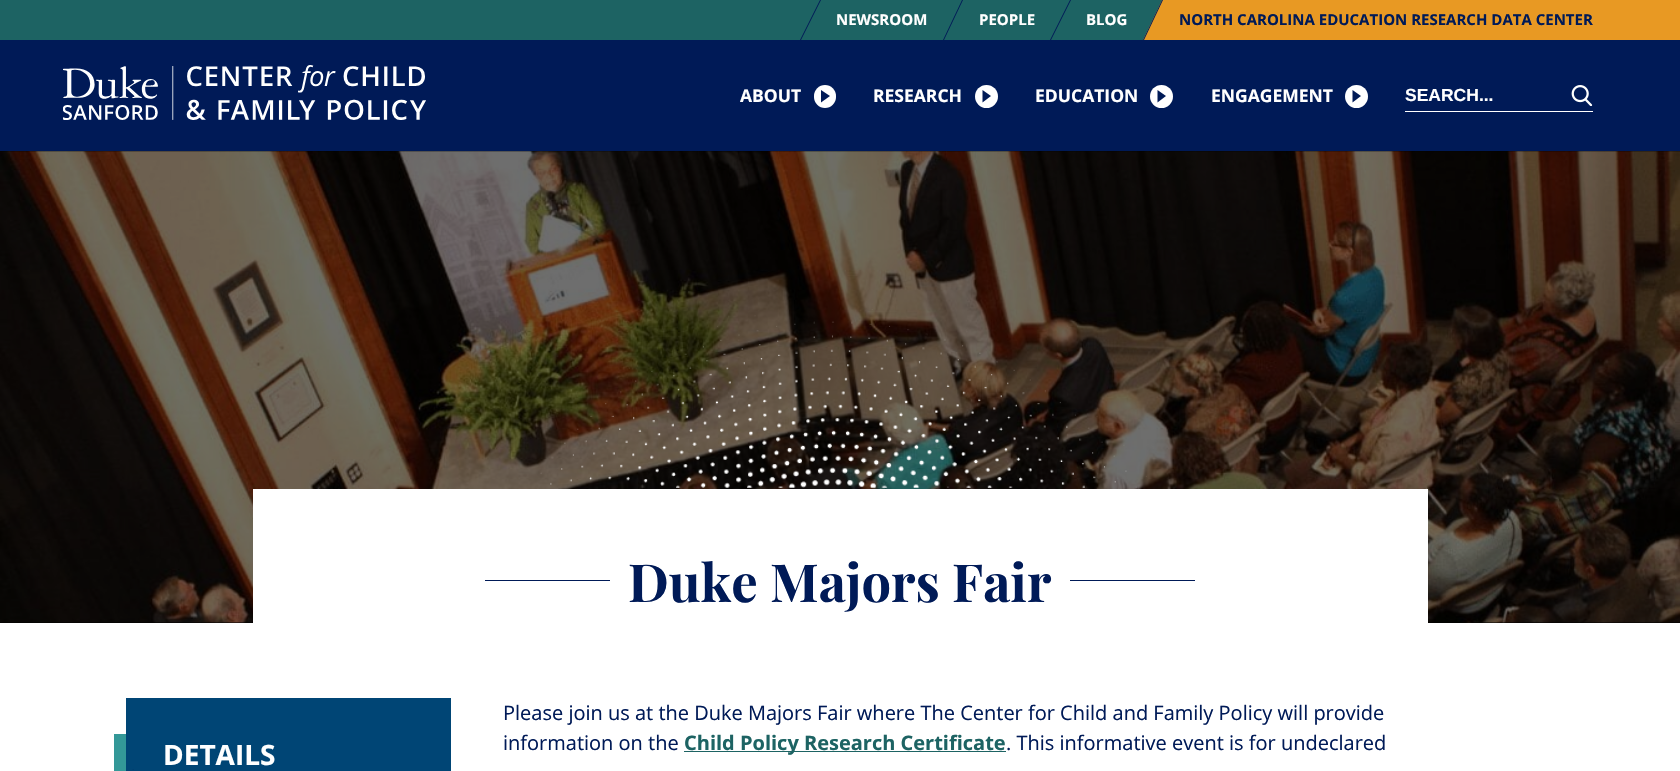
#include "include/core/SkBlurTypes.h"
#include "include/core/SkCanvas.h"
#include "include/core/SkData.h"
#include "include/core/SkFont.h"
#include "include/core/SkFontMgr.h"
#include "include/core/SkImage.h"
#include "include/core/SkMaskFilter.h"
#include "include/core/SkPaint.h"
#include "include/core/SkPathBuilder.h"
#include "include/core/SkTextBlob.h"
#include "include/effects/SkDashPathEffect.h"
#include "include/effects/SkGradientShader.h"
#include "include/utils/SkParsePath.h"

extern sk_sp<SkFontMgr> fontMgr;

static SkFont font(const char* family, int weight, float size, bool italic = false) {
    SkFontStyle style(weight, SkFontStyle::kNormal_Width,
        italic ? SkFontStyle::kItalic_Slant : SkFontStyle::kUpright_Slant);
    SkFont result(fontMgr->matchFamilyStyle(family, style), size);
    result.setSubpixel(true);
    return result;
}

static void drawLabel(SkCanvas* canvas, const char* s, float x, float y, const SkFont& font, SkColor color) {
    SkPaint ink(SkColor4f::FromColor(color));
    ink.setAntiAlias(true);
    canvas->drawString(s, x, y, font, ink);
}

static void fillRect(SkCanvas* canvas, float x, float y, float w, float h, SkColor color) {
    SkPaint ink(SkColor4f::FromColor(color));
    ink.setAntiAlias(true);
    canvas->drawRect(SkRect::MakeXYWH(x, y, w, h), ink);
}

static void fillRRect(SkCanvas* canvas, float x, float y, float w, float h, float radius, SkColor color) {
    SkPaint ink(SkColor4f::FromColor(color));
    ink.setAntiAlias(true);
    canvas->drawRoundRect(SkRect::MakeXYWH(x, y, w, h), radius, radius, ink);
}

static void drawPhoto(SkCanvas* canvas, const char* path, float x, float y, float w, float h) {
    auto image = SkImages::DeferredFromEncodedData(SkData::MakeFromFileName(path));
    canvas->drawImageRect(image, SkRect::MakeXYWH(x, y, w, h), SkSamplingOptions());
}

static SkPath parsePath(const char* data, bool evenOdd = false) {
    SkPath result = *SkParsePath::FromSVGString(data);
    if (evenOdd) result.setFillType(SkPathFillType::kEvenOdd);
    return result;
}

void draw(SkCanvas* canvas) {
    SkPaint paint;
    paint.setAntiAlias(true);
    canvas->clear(0xFFFFFFFF);
    fillRect(canvas, 0, 0, 1162, 40, 0xFF1D6363);
    paint.setColor(0xFF001A57);
    canvas->drawPath(parsePath("M820 0H821L801 40H800Z"), paint);
    SkFont font1 = font("Open Sans", 700, 15);
    drawLabel(canvas, "NEWSROOM", 836, 25, font1, 0xFFFFFFFF);
    canvas->drawPath(parsePath("M962 0H963L944 40H943Z"), paint);
    drawLabel(canvas, "PEOPLE", 979, 25, font1, 0xFFFFFFFF);
    canvas->drawPath(parsePath("M1070 0H1071L1051 40H1050Z"), paint);
    drawLabel(canvas, "BLOG", 1086, 25, font1, 0xFFFFFFFF);
    paint.setColor(0xFFE89923);
    canvas->drawPath(parsePath("M1162 0H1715L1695 40H1143Z"), paint);
    paint.setColor(0xFF001A57);
    canvas->drawPath(parsePath("M1162 0H1163L1144 40H1143Z"), paint);
    drawLabel(canvas, "NORTH CAROLINA EDUCATION RESEARCH DATA CENTER", 1179, 25, font1, 0xFF001A57);
    fillRect(canvas, 0, 40, 1680, 111, 0xFF001A57);
    drawPhoto(canvas, "assets/img1.png", 63, 65, 363, 55);
    SkFont font2 = font("Open Sans", 700, 17.5f);
    drawLabel(canvas, "ABOUT", 740, 102, font2, 0xFFFFFFFF);
    fillRRect(canvas, 814, 85, 22, 23, 11, 0xFFFFFFFF);
    canvas->drawPath(parsePath("M821 102.5V90L830 96Z"), paint);
    drawLabel(canvas, "RESEARCH", 873, 102, font2, 0xFFFFFFFF);
    paint.setColor(0xFFFFFFFF);
    canvas->drawCircle(986.5f, 96.5f, 11.5f, paint);
    paint.setColor(0xFF001A57);
    canvas->drawPath(parsePath("M982.5 102.5V90L991 96Z"), paint);
    drawLabel(canvas, "EDUCATION", 1035, 102, font2, 0xFFFFFFFF);
    paint.setColor(0xFFFFFFFF);
    canvas->drawCircle(1161.5f, 96.5f, 11.5f, paint);
    paint.setColor(0xFF001A57);
    canvas->drawPath(parsePath("M1157.5 102.5V90L1166 96Z"), paint);
    drawLabel(canvas, "ENGAGEMENT", 1211, 102, font2, 0xFFFFFFFF);
    paint.setColor(0xFFFFFFFF);
    canvas->drawCircle(1356.5f, 96.5f, 11.5f, paint);
    paint.setColor(0xFF001A57);
    canvas->drawPath(parsePath("M1352.5 102.5V90L1361 96Z"), paint);
    fillRect(canvas, 1405, 111, 188, 1, 0xFFFFFFFF);
    SkFont font3 = font("Liberation Sans", 700, 17.5f);
    drawLabel(canvas, "SEARCH...", 1405, 101, font3, 0xFFFFFFFF);
    drawPhoto(canvas, "assets/img2.png", 1571, 85, 22, 21);
    fillRect(canvas, 0, 151, 1680, 472, 0xFF000000);
    drawPhoto(canvas, "assets/img3.png", 0, 151, 1680, 472);
    fillRect(canvas, 253, 489, 1175, 134, 0xFFFFFFFF);
    drawPhoto(canvas, "assets/img4.png", 540, 309, 607, 179);
    fillRect(canvas, 485, 580, 125, 1, 0xFF001A57);
    SkFont font4 = font("Playfair Display", 700, 52.5f);
    drawLabel(canvas, "Duke Majors Fair", 628, 602, font4, 0xFF001A57);
    fillRect(canvas, 1070, 580, 125, 1, 0xFF001A57);
    fillRect(canvas, 114, 734, 12, 37, 0xFF339898);
    fillRect(canvas, 126, 698, 325, 73, 0xFF004575);
    SkFont font5 = font("Open Sans", 700, 28);
    drawLabel(canvas, "DETAILS", 163, 765, font5, 0xFFFFFFFF);
    drawPhoto(canvas, "assets/img5.png", 132, 769, 2, 1);
    SkFont font6 = font("Open Sans", 400, 20);
    drawLabel(canvas, "Please join us at the Duke Majors Fair where The Center for Child and Family Policy will provide", 503, 720, font6, 0xFF001A57);
    drawLabel(canvas, "information on the", 503, 750, font6, 0xFF001A57);
    fillRect(canvas, 684, 751, 322, 1, 0xFF1D6363);
    SkFont font7 = font("Open Sans", 700, 20);
    drawLabel(canvas, "Child Policy Research Certificate", 684, 750, font7, 0xFF1D6363);
    drawLabel(canvas, ". This informative event is for undeclared", 1006, 750, font6, 0xFF001A57);
}
